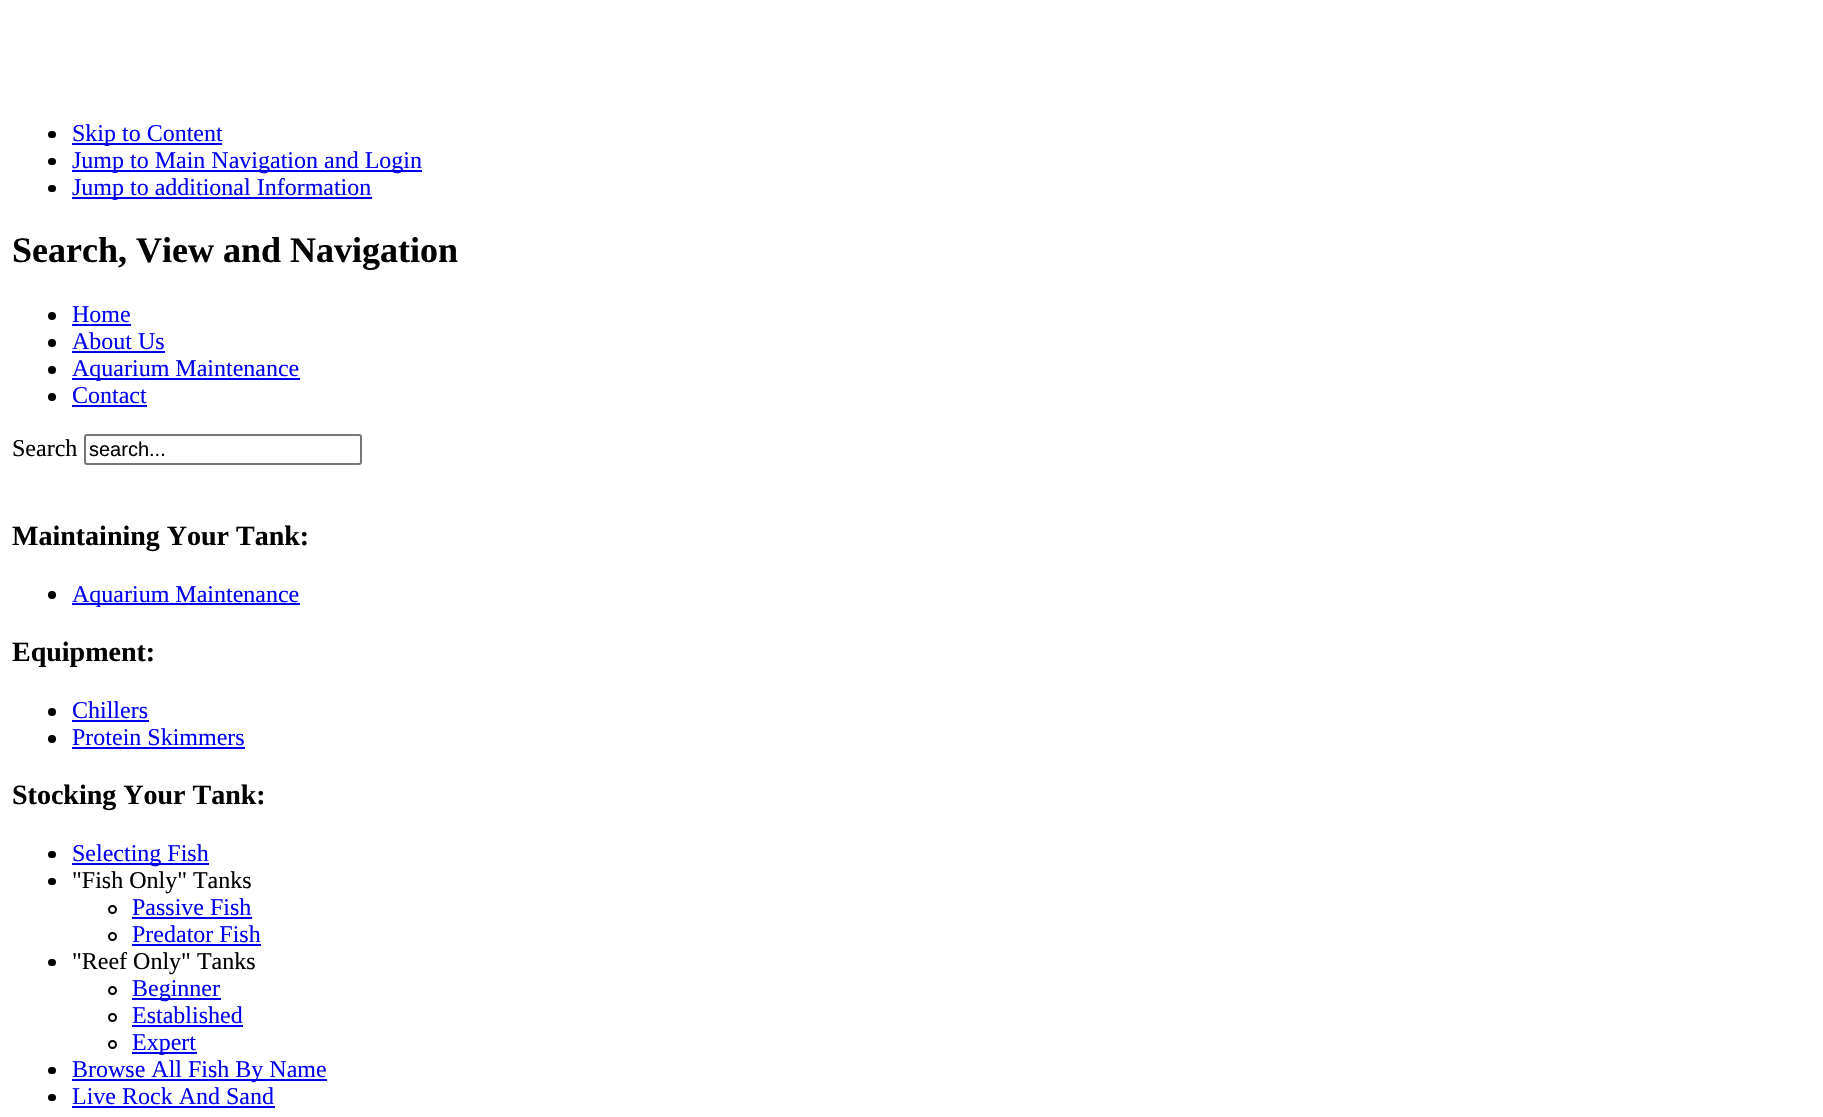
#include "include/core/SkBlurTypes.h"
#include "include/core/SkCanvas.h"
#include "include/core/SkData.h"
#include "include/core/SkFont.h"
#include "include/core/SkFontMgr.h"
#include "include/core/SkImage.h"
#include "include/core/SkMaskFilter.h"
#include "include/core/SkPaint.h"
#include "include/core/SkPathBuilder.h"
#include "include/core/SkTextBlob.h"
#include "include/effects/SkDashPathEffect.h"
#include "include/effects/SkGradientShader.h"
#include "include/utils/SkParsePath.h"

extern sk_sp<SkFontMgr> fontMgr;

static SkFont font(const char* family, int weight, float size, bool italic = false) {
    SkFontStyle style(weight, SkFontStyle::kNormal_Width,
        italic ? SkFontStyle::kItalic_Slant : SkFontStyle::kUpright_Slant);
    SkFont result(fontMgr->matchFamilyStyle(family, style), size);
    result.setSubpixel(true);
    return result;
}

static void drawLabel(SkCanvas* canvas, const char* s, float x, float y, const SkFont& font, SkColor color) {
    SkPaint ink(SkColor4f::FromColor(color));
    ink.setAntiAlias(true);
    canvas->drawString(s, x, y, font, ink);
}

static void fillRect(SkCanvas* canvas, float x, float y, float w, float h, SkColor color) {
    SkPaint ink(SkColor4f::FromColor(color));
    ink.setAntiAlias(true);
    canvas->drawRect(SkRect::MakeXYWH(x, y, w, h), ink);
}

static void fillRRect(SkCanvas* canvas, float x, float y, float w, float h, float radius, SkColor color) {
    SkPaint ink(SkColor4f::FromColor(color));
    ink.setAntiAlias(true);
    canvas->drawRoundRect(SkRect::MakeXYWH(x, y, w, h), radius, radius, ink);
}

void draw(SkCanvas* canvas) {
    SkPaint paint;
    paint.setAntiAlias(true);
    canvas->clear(0xFFFFFFFF);
    fillRRect(canvas, 48, 131, 8, 7, 3.5f, 0xFF000000);
    fillRect(canvas, 72, 143, 150, 2, 0xFF0000EE);
    SkFont font1 = font("Liberation Serif", 400, 24);
    drawLabel(canvas, "Skip to Content", 72, 141, font1, 0xFF0000EE);
    fillRRect(canvas, 48, 158, 8, 7, 3.5f, 0xFF000000);
    fillRect(canvas, 72, 170, 350, 2, 0xFF0000EE);
    drawLabel(canvas, "Jump to Main Navigation and Login", 72, 168, font1, 0xFF0000EE);
    fillRRect(canvas, 48, 185, 8, 7, 3.5f, 0xFF000000);
    fillRect(canvas, 72, 197, 300, 2, 0xFF0000EE);
    drawLabel(canvas, "Jump to additional Information", 72, 195, font1, 0xFF0000EE);
    SkFont font2 = font("Liberation Serif", 700, 36);
    drawLabel(canvas, "Search, View and Navigation", 12, 262, font2, 0xFF000000);
    paint.setColor(0xFF000000);
    canvas->drawCircle(52, 316, 4, paint);
    drawLabel(canvas, "Home", 72, 322, font1, 0xFF0000EE);
    fillRect(canvas, 72, 324, 59, 2, 0xFF0000EE);
    canvas->drawCircle(52, 343, 4, paint);
    drawLabel(canvas, "About Us", 72, 349, font1, 0xFF0000EE);
    fillRect(canvas, 72, 351, 93, 2, 0xFF0000EE);
    canvas->drawCircle(52, 370, 4, paint);
    fillRect(canvas, 72, 378, 228, 2, 0xFF0000EE);
    drawLabel(canvas, "Aquarium Maintenance", 72, 376, font1, 0xFF0000EE);
    canvas->drawCircle(52, 397, 4, paint);
    drawLabel(canvas, "Contact", 72, 403, font1, 0xFF0000EE);
    fillRect(canvas, 72, 405, 75, 2, 0xFF0000EE);
    drawLabel(canvas, "Search", 12, 456, font1, 0xFF000000);
    paint.setStroke(true);
    paint.setStrokeWidth(2);
    paint.setColor(0xFF767676);
    canvas->drawRoundRect(SkRect::MakeXYWH(85, 435, 276, 29), 2, 2, paint);
    SkFont font3 = font("Liberation Sans", 400, 20);
    drawLabel(canvas, "search...", 89, 456, font3, 0xFF000000);
    SkFont font4 = font("Liberation Serif", 700, 28);
    drawLabel(canvas, "Maintaining Your Tank:", 12, 545, font4, 0xFF000000);
    paint.setStroke(false);
    paint.setColor(0xFF000000);
    canvas->drawCircle(52, 595, 4, paint);
    fillRect(canvas, 72, 603, 228, 2, 0xFF0000EE);
    drawLabel(canvas, "Aquarium Maintenance", 72, 602, font1, 0xFF0000EE);
    drawLabel(canvas, "Equipment:", 12, 661, font4, 0xFF000000);
    canvas->drawCircle(52, 712, 4, paint);
    drawLabel(canvas, "Chillers", 72, 718, font1, 0xFF0000EE);
    fillRect(canvas, 72, 720, 77, 2, 0xFF0000EE);
    canvas->drawCircle(52, 739, 4, paint);
    drawLabel(canvas, "Protein Skimmers", 72, 745, font1, 0xFF0000EE);
    fillRect(canvas, 72, 747, 173, 2, 0xFF0000EE);
    drawLabel(canvas, "Stocking Your Tank:", 12, 804, font4, 0xFF000000);
    fillRRect(canvas, 48, 851, 8, 7, 3.5f, 0xFF000000);
    fillRect(canvas, 72, 863, 137, 2, 0xFF0000EE);
    drawLabel(canvas, "Selecting Fish", 72, 861, font1, 0xFF0000EE);
    fillRRect(canvas, 48, 878, 8, 7, 3.5f, 0xFF000000);
    drawLabel(canvas, "\"Fish Only\" Tanks", 72, 888, font1, 0xFF000000);
    paint.setStroke(true);
    canvas->drawCircle(112.5f, 909.5f, 3.5f, paint);
    drawLabel(canvas, "Passive Fish", 132, 915, font1, 0xFF0000EE);
    fillRect(canvas, 132, 917, 120, 2, 0xFF0000EE);
    canvas->drawCircle(112.5f, 936.5f, 3.5f, paint);
    drawLabel(canvas, "Predator Fish", 132, 942, font1, 0xFF0000EE);
    fillRect(canvas, 132, 944, 129, 2, 0xFF0000EE);
    fillRRect(canvas, 48, 959, 8, 7, 3.5f, 0xFF000000);
    drawLabel(canvas, "\"Reef Only\" Tanks", 72, 969, font1, 0xFF000000);
    canvas->drawCircle(112.5f, 990.5f, 3.5f, paint);
    fillRect(canvas, 132, 998, 89, 2, 0xFF0000EE);
    drawLabel(canvas, "Beginner", 132, 996, font1, 0xFF0000EE);
    canvas->drawCircle(112.5f, 1017.5f, 3.5f, paint);
    drawLabel(canvas, "Established", 132, 1023, font1, 0xFF0000EE);
    fillRect(canvas, 132, 1025, 111, 2, 0xFF0000EE);
    canvas->drawCircle(112.5f, 1044.5f, 3.5f, paint);
    fillRect(canvas, 132, 1052, 65, 2, 0xFF0000EE);
    drawLabel(canvas, "Expert", 132, 1050, font1, 0xFF0000EE);
    fillRRect(canvas, 48, 1067, 8, 7, 3.5f, 0xFF000000);
    fillRect(canvas, 72, 1079, 255, 2, 0xFF0000EE);
    drawLabel(canvas, "Browse All Fish By Name", 72, 1077, font1, 0xFF0000EE);
    fillRRect(canvas, 48, 1094, 8, 7, 3.5f, 0xFF000000);
    drawLabel(canvas, "Live Rock And Sand", 72, 1104, font1, 0xFF0000EE);
    fillRect(canvas, 72, 1106, 203, 2, 0xFF0000EE);
}
